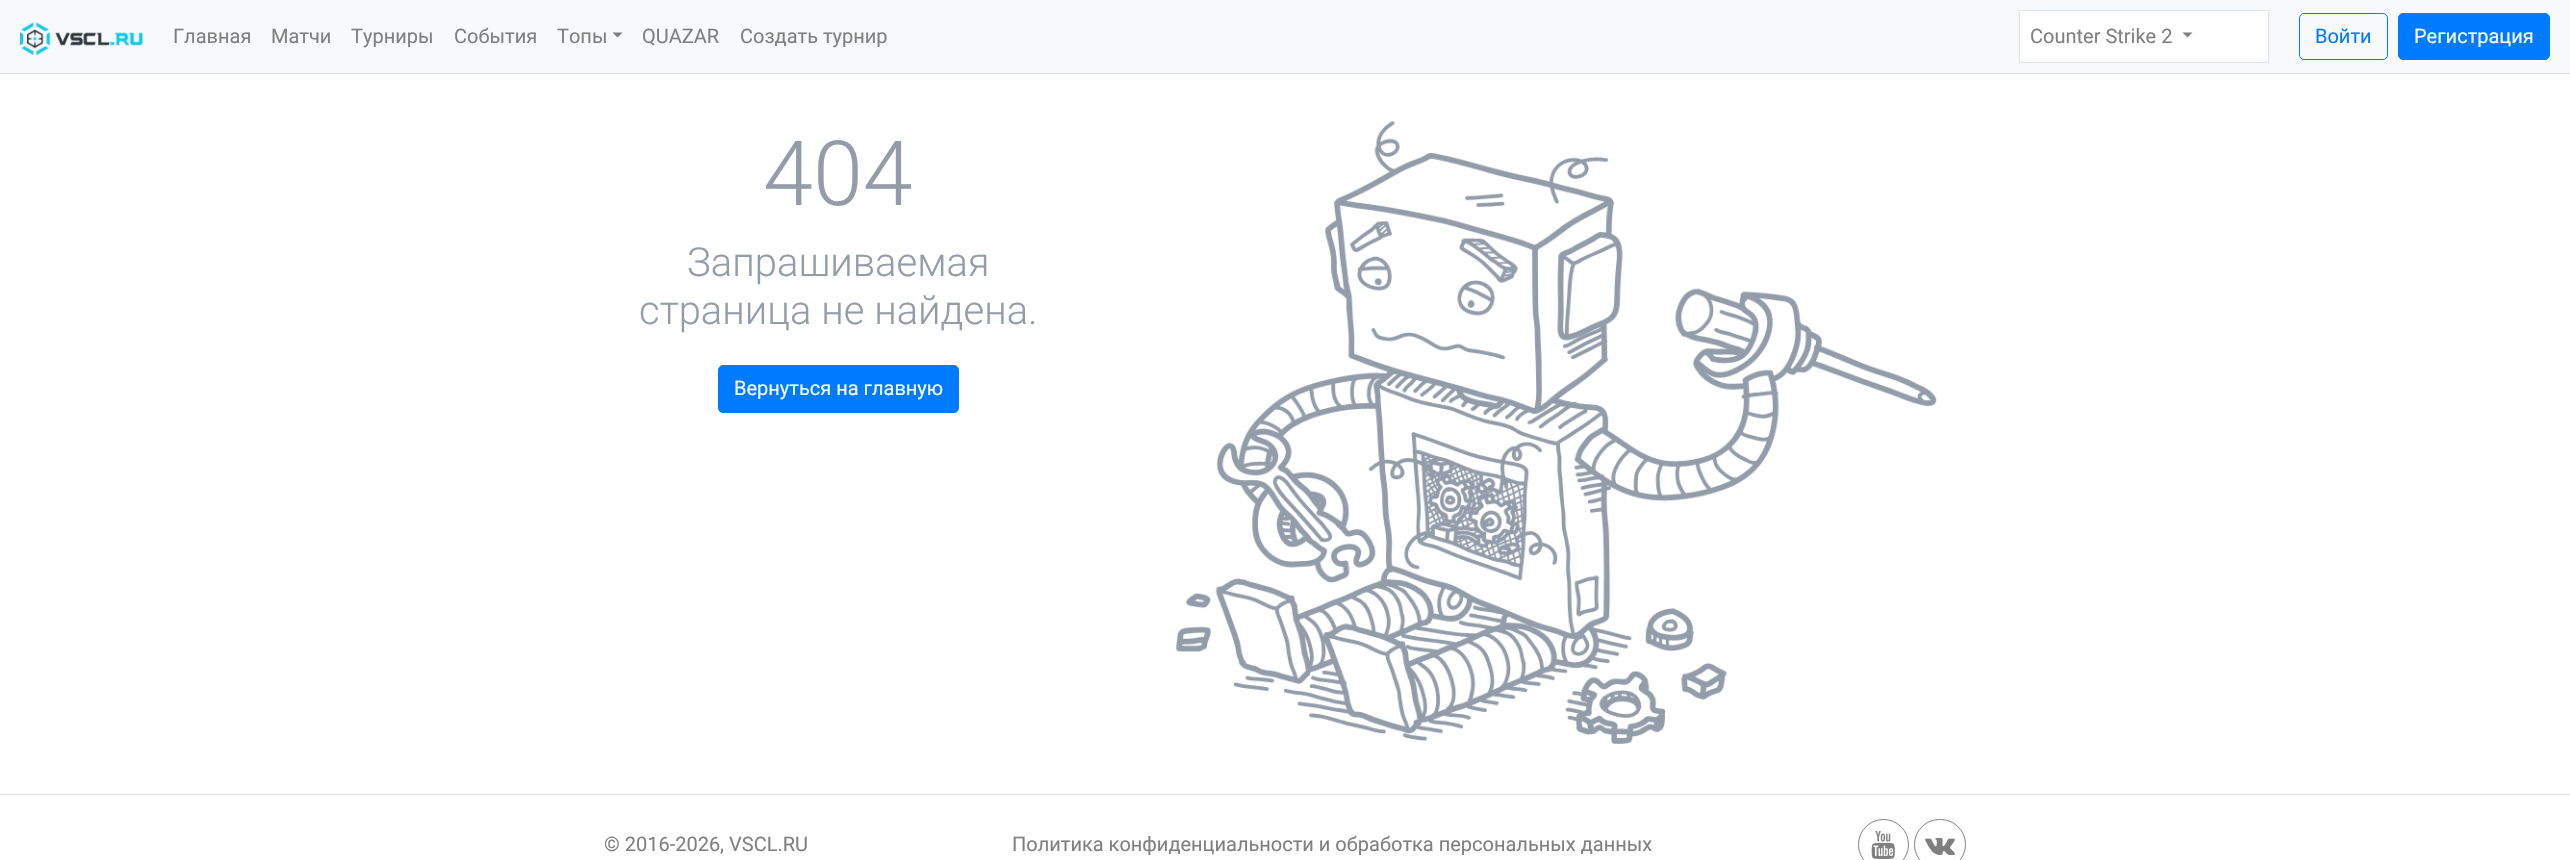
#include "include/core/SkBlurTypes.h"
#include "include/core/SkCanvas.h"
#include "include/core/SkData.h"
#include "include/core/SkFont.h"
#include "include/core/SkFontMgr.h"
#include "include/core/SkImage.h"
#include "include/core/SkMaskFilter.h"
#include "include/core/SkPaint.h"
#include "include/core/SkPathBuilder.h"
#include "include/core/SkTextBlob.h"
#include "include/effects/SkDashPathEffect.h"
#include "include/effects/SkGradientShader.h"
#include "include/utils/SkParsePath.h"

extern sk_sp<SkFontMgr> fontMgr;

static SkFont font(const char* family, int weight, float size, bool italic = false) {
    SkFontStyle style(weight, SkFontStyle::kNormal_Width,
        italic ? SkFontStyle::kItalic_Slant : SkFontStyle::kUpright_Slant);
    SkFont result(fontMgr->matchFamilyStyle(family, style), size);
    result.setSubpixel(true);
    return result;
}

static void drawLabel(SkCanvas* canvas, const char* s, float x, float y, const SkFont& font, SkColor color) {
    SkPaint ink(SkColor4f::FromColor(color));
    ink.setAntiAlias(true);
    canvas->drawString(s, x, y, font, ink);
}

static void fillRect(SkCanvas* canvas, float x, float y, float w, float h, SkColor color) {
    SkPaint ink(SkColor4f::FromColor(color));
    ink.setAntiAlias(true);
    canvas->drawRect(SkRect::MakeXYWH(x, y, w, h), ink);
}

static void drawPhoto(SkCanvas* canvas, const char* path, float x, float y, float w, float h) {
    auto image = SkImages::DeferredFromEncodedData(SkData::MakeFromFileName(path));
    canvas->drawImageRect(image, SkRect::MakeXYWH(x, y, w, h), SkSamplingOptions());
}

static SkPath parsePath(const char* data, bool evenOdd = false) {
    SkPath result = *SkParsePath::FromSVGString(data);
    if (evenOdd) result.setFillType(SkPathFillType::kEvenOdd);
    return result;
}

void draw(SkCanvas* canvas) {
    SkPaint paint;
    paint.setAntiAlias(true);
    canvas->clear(0xFFFFFFFF);
    fillRect(canvas, 0, 0, 2570, 73, 0xFFF8F9FA);
    fillRect(canvas, 0, 73, 2570, 1, 0xFFD9DADB);
    drawPhoto(canvas, "assets/img1.png", 20, 22, 123, 33);
    SkFont font1 = font("Roboto", 400, 20);
    drawLabel(canvas, "Главная", 173, 43, font1, 0xFF808080);
    drawLabel(canvas, "Матчи", 271, 43, font1, 0xFF808080);
    drawLabel(canvas, "Турниры", 351, 43, font1, 0xFF808080);
    drawLabel(canvas, "События", 454, 43, font1, 0xFF808080);
    drawLabel(canvas, "Топы", 557, 43, font1, 0xFF808080);
    paint.setColor(0xFF7C7D7D);
    canvas->drawPath(parsePath("M612.5 32.5H622.5L617.5 37.5Z"), paint);
    drawLabel(canvas, "QUAZAR", 642, 43, font1, 0xFF808080);
    drawLabel(canvas, "Создать турнир", 740, 43, font1, 0xFF808080);
    paint.setColor(0xFFFFFFFF);
    canvas->drawRect(SkRect::MakeXYWH(2019.5f, 10.5f, 249, 52), paint);
    paint.setStroke(true);
    paint.setStrokeWidth(1);
    paint.setColor(0xFFDEE2E6);
    canvas->drawRect(SkRect::MakeXYWH(2019.5f, 10.5f, 249, 52), paint);
    drawLabel(canvas, "Counter Strike 2", 2030, 43, font1, 0xFF808080);
    paint.setStroke(false);
    paint.setColor(0xFF808080);
    canvas->drawPath(parsePath("M2182.5 32.5H2192.5L2187.5 37.5Z"), paint);
    paint.setStroke(true);
    paint.setColor(0xFF007BFF);
    canvas->drawRoundRect(SkRect::MakeXYWH(2299.5f, 13.5f, 88, 46), 4.5f, 4.5f, paint);
    drawLabel(canvas, "Войти", 2315, 43, font1, 0xFF007BFF);
    paint.setStroke(false);
    canvas->drawRoundRect(SkRect::MakeXYWH(2398.5f, 13.5f, 151, 46), 4.5f, 4.5f, paint);
    paint.setStroke(true);
    canvas->drawRoundRect(SkRect::MakeXYWH(2398.5f, 13.5f, 151, 46), 4.5f, 4.5f, paint);
    drawLabel(canvas, "Регистрация", 2414, 43, font1, 0xFFFFFFFF);
    SkFont font2 = font("Roboto", 300, 90);
    drawLabel(canvas, "404", 763, 205, font2, 0xFF939DAA);
    SkFont font3 = font("Roboto", 300, 40);
    drawLabel(canvas, "Запрашиваемая", 687, 276, font3, 0xFF939DAA);
    drawLabel(canvas, "страница не найдена.", 639, 324, font3, 0xFF939DAA);
    paint.setStroke(false);
    canvas->drawRoundRect(SkRect::MakeXYWH(718.5f, 365.5f, 240, 47), 4.5f, 4.5f, paint);
    paint.setStroke(true);
    canvas->drawRoundRect(SkRect::MakeXYWH(718.5f, 365.5f, 240, 47), 4.5f, 4.5f, paint);
    drawLabel(canvas, "Вернуться на главную", 734, 395, font1, 0xFFFFFFFF);
    drawPhoto(canvas, "assets/img2.png", 1176, 121, 761, 623);
    fillRect(canvas, 0, 794, 2570, 1, 0xFFDFDFDF);
    drawLabel(canvas, "© 2016-2026, VSCL.RU", 604, 851, font1, 0xFF808080);
    drawLabel(canvas, "Политика конфиденциальности и обработка персональных данных", 1012, 851, font1, 0xFF808080);
    paint.setColor(0xFF808080);
    canvas->drawCircle(1883.5f, 844.5f, 25, paint);
    drawPhoto(canvas, "assets/img3.png", 1871, 831, 24, 28);
    canvas->drawRoundRect(SkRect::MakeXYWH(1914.5f, 819.5f, 51, 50), 25, 25, paint);
    drawPhoto(canvas, "assets/img4.png", 1925, 837, 30, 18);
}
